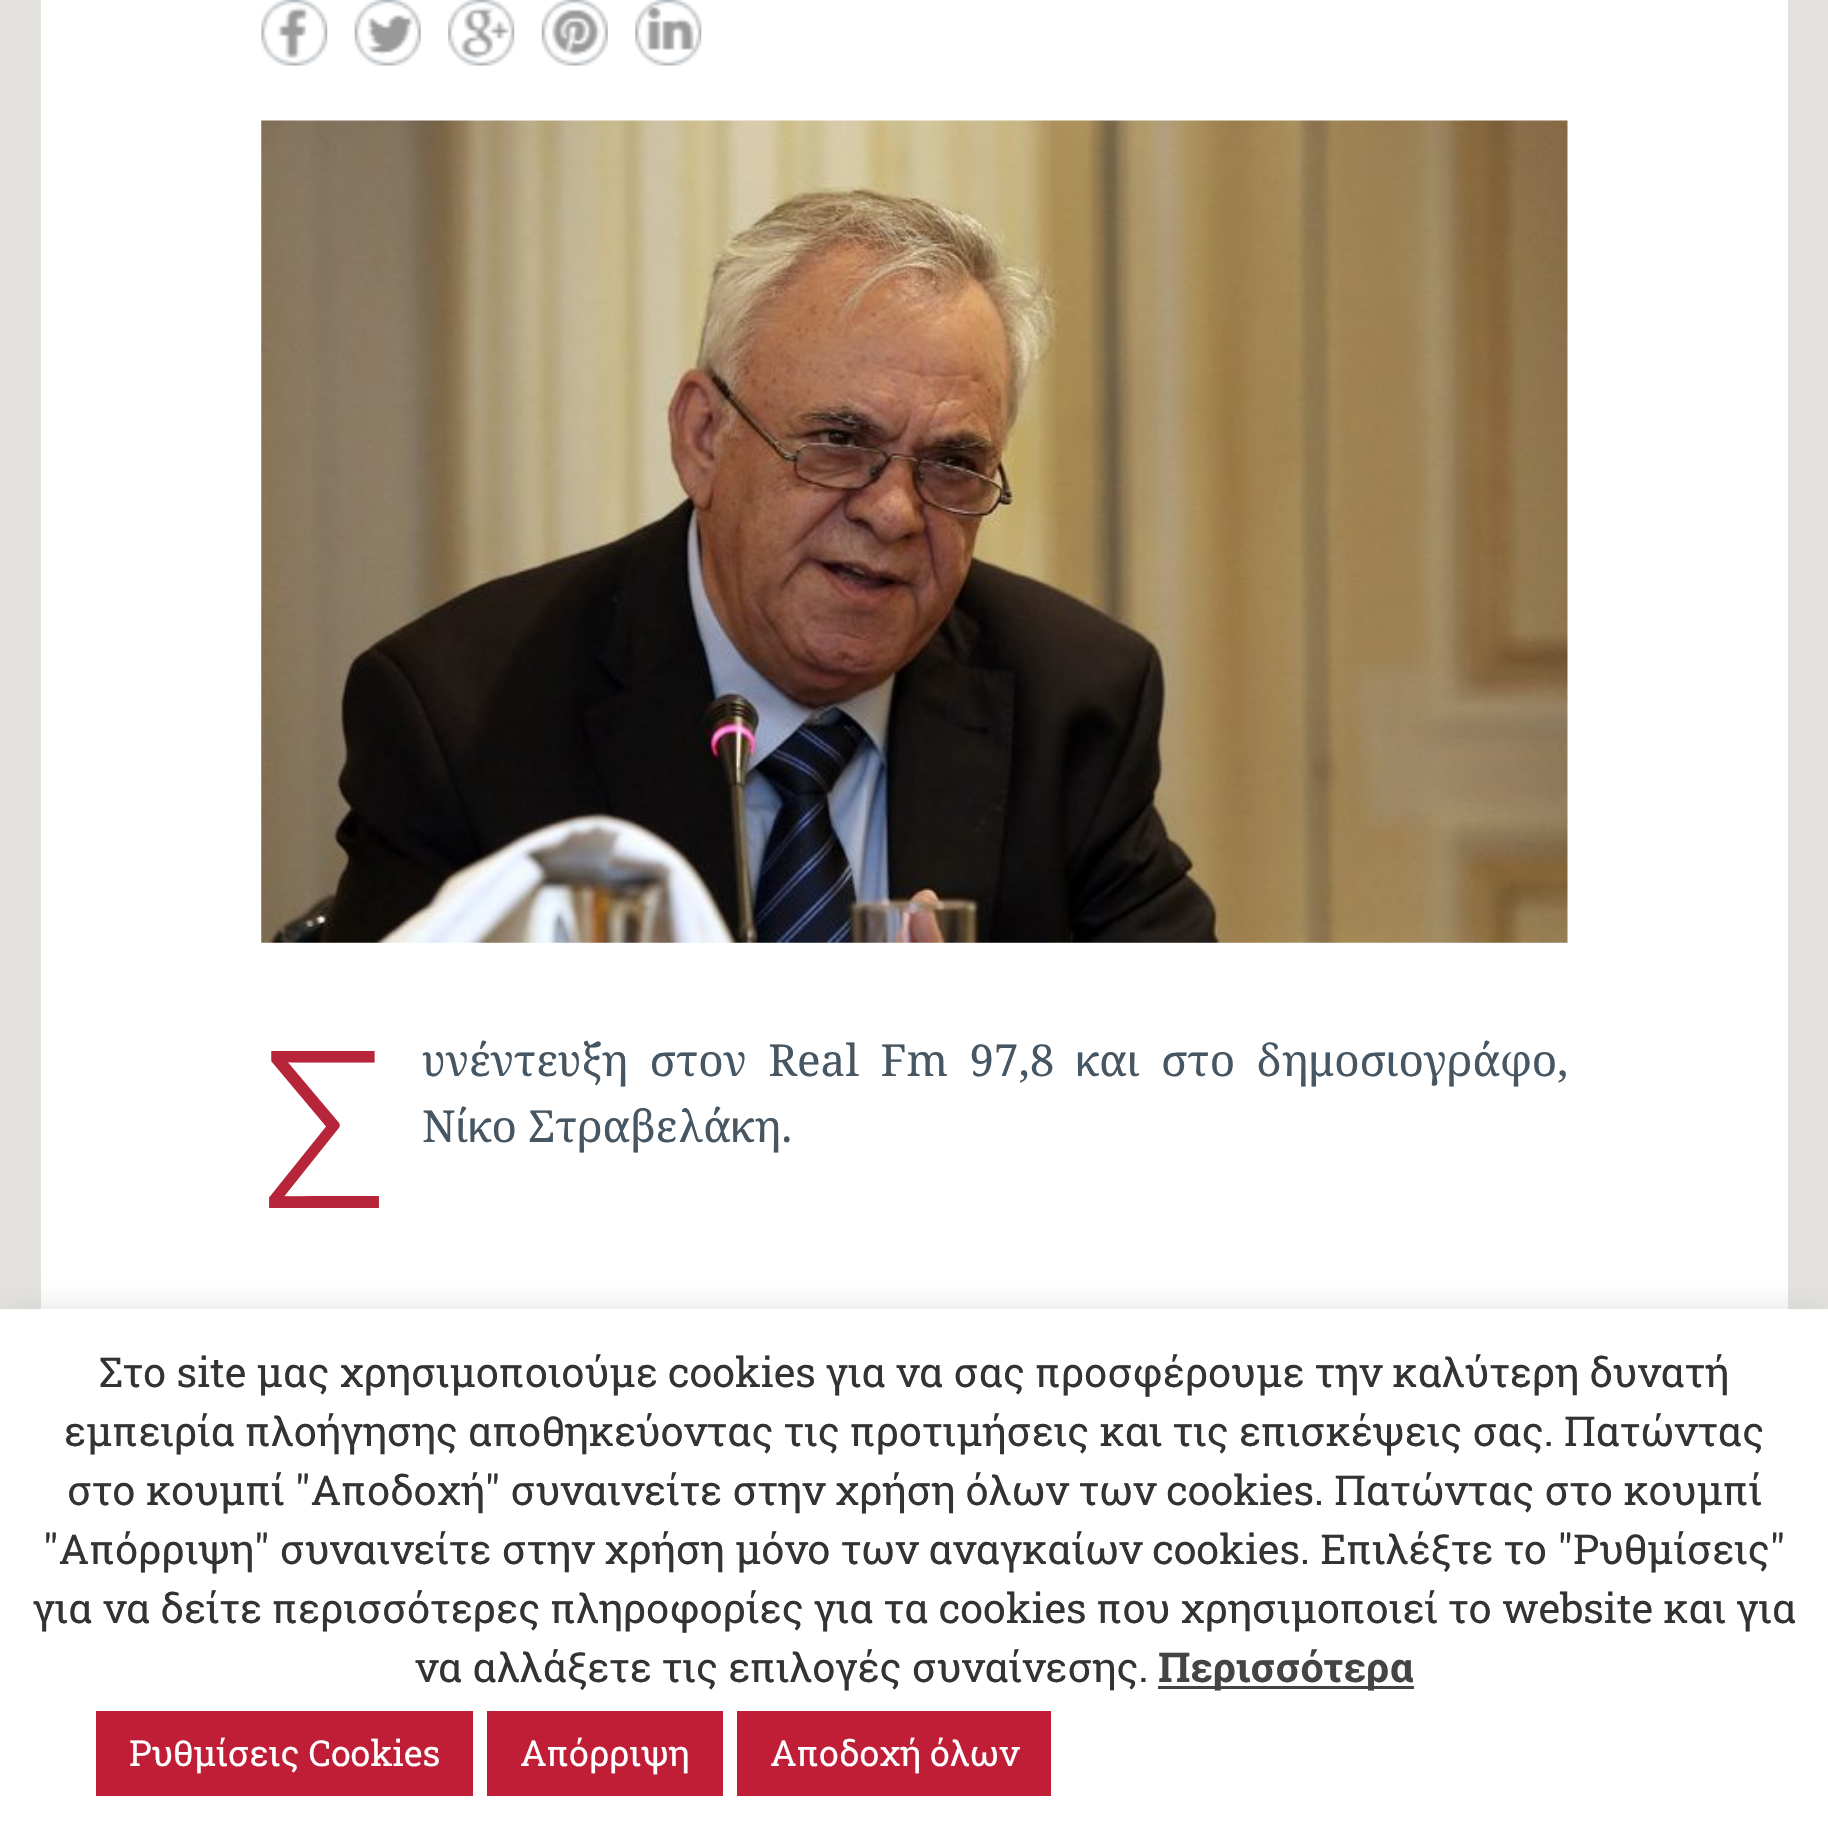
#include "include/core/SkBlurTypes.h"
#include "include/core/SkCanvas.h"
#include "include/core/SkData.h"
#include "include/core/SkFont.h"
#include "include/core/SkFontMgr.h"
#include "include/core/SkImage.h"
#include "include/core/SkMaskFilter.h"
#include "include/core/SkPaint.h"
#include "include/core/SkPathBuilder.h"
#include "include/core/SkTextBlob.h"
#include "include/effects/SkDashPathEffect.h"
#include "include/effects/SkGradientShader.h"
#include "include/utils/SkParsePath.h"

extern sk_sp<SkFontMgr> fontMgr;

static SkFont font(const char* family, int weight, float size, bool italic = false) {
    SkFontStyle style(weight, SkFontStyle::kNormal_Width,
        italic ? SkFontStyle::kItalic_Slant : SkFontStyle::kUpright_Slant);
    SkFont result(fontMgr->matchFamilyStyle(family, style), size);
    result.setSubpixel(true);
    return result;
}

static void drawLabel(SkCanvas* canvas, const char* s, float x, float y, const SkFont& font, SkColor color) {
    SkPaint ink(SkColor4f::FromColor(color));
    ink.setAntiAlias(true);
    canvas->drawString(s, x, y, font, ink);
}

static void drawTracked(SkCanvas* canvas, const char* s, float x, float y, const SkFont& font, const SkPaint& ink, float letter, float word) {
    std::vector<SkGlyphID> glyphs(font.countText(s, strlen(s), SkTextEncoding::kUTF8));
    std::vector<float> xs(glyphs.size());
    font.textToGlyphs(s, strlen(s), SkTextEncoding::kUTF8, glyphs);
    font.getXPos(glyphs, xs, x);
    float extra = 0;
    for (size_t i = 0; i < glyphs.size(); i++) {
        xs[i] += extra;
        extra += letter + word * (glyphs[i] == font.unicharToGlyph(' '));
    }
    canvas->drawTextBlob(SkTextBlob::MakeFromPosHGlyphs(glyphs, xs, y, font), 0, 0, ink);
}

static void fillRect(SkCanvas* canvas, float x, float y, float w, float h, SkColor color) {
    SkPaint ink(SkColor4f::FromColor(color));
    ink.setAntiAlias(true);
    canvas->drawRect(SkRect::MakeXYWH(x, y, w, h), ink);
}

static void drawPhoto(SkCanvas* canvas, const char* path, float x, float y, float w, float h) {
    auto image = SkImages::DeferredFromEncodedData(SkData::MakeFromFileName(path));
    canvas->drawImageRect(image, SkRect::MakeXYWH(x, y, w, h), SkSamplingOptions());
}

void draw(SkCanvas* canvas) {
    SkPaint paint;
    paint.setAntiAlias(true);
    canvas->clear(0xFFE3E2DE);
    fillRect(canvas, 41, 0, 1747, 1309, 0xFFFFFFFF);
    drawPhoto(canvas, "assets/img1.png", 261, 0, 67, 66);
    drawPhoto(canvas, "assets/img2.png", 354, 0, 67, 66);
    drawPhoto(canvas, "assets/img3.png", 448, 0, 67, 66);
    drawPhoto(canvas, "assets/img4.png", 541, 0, 67, 66);
    drawPhoto(canvas, "assets/img5.png", 635, 0, 67, 66);
    drawPhoto(canvas, "assets/img6.png", 261, 120, 1307, 823);
    SkFont font1 = font("Noto Sans", 300, 220);
    drawLabel(canvas, "Σ", 261, 1208, font1, 0xFFB7253A);
    SkFont font2 = font("Noto Serif", 400, 44);
    paint.setColor(0xFF465662);
    drawTracked(canvas, "υνέντευξη στον Real Fm 97,8 και στο δημοσιογράφο,", 422, 1076, font2, paint, 0, 10);
    drawLabel(canvas, "Νίκο Στραβελάκη.", 422, 1142, font2, 0xFF465662);
    paint.setColor(0x4DACABAB);
    paint.setMaskFilter(SkMaskFilter::MakeBlur(kNormal_SkBlurStyle, 14));
    canvas->drawRect(SkRect::MakeXYWH(0, 1306, 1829, 520), paint);
    paint.setMaskFilter(nullptr);
    fillRect(canvas, 0, 1309, 1828, 519, 0xFFFFFFFF);
    SkFont font3 = font("Roboto Slab", 400, 41.25f);
    drawLabel(canvas, "Στο site μας χρησιμοποιούμε cookies για να σας προσφέρουμε την καλύτερη δυνατή", 99, 1387, font3, 0xFF333333);
    drawLabel(canvas, "εμπειρία πλοήγησης αποθηκεύοντας τις προτιμήσεις και τις επισκέψεις σας. Πατώντας", 64, 1446, font3, 0xFF333333);
    drawLabel(canvas, "στο κουμπί \"Αποδοχή\" συναινείτε στην χρήση όλων των cookies. Πατώντας στο κουμπί", 67, 1505, font3, 0xFF333333);
    drawLabel(canvas, "\"Απόρριψη\" συναινείτε στην χρήση μόνο των αναγκαίων cookies. Επιλέξτε το \"Ρυθμίσεις\"", 43, 1564, font3, 0xFF333333);
    drawLabel(canvas, "για να δείτε περισσότερες πληροφορίες για τα cookies που χρησιμοποιεί το website και για", 33, 1623, font3, 0xFF333333);
    drawLabel(canvas, "να αλλάξετε τις επιλογές συναίνεσης.", 415, 1682, font3, 0xFF333333);
    fillRect(canvas, 1158, 1686, 256, 3, 0xFF444444);
    SkFont font4 = font("Roboto Slab", 700, 41.25f);
    drawLabel(canvas, "Περισσότερα", 1158, 1682, font4, 0xFF444444);
    fillRect(canvas, 96, 1711, 377, 85, 0xFFC01E36);
    SkFont font5 = font("Roboto Slab", 400, 35.75f);
    drawLabel(canvas, "Ρυθμίσεις Cookies", 129, 1766, font5, 0xFFFFFFFF);
    fillRect(canvas, 487, 1711, 236, 85, 0xFFC01E36);
    drawLabel(canvas, "Απόρριψη", 520, 1766, font5, 0xFFFFFFFF);
    fillRect(canvas, 737, 1711, 314, 85, 0xFFC01E36);
    drawLabel(canvas, "Αποδοχή όλων", 770, 1766, font5, 0xFFFFFFFF);
}
